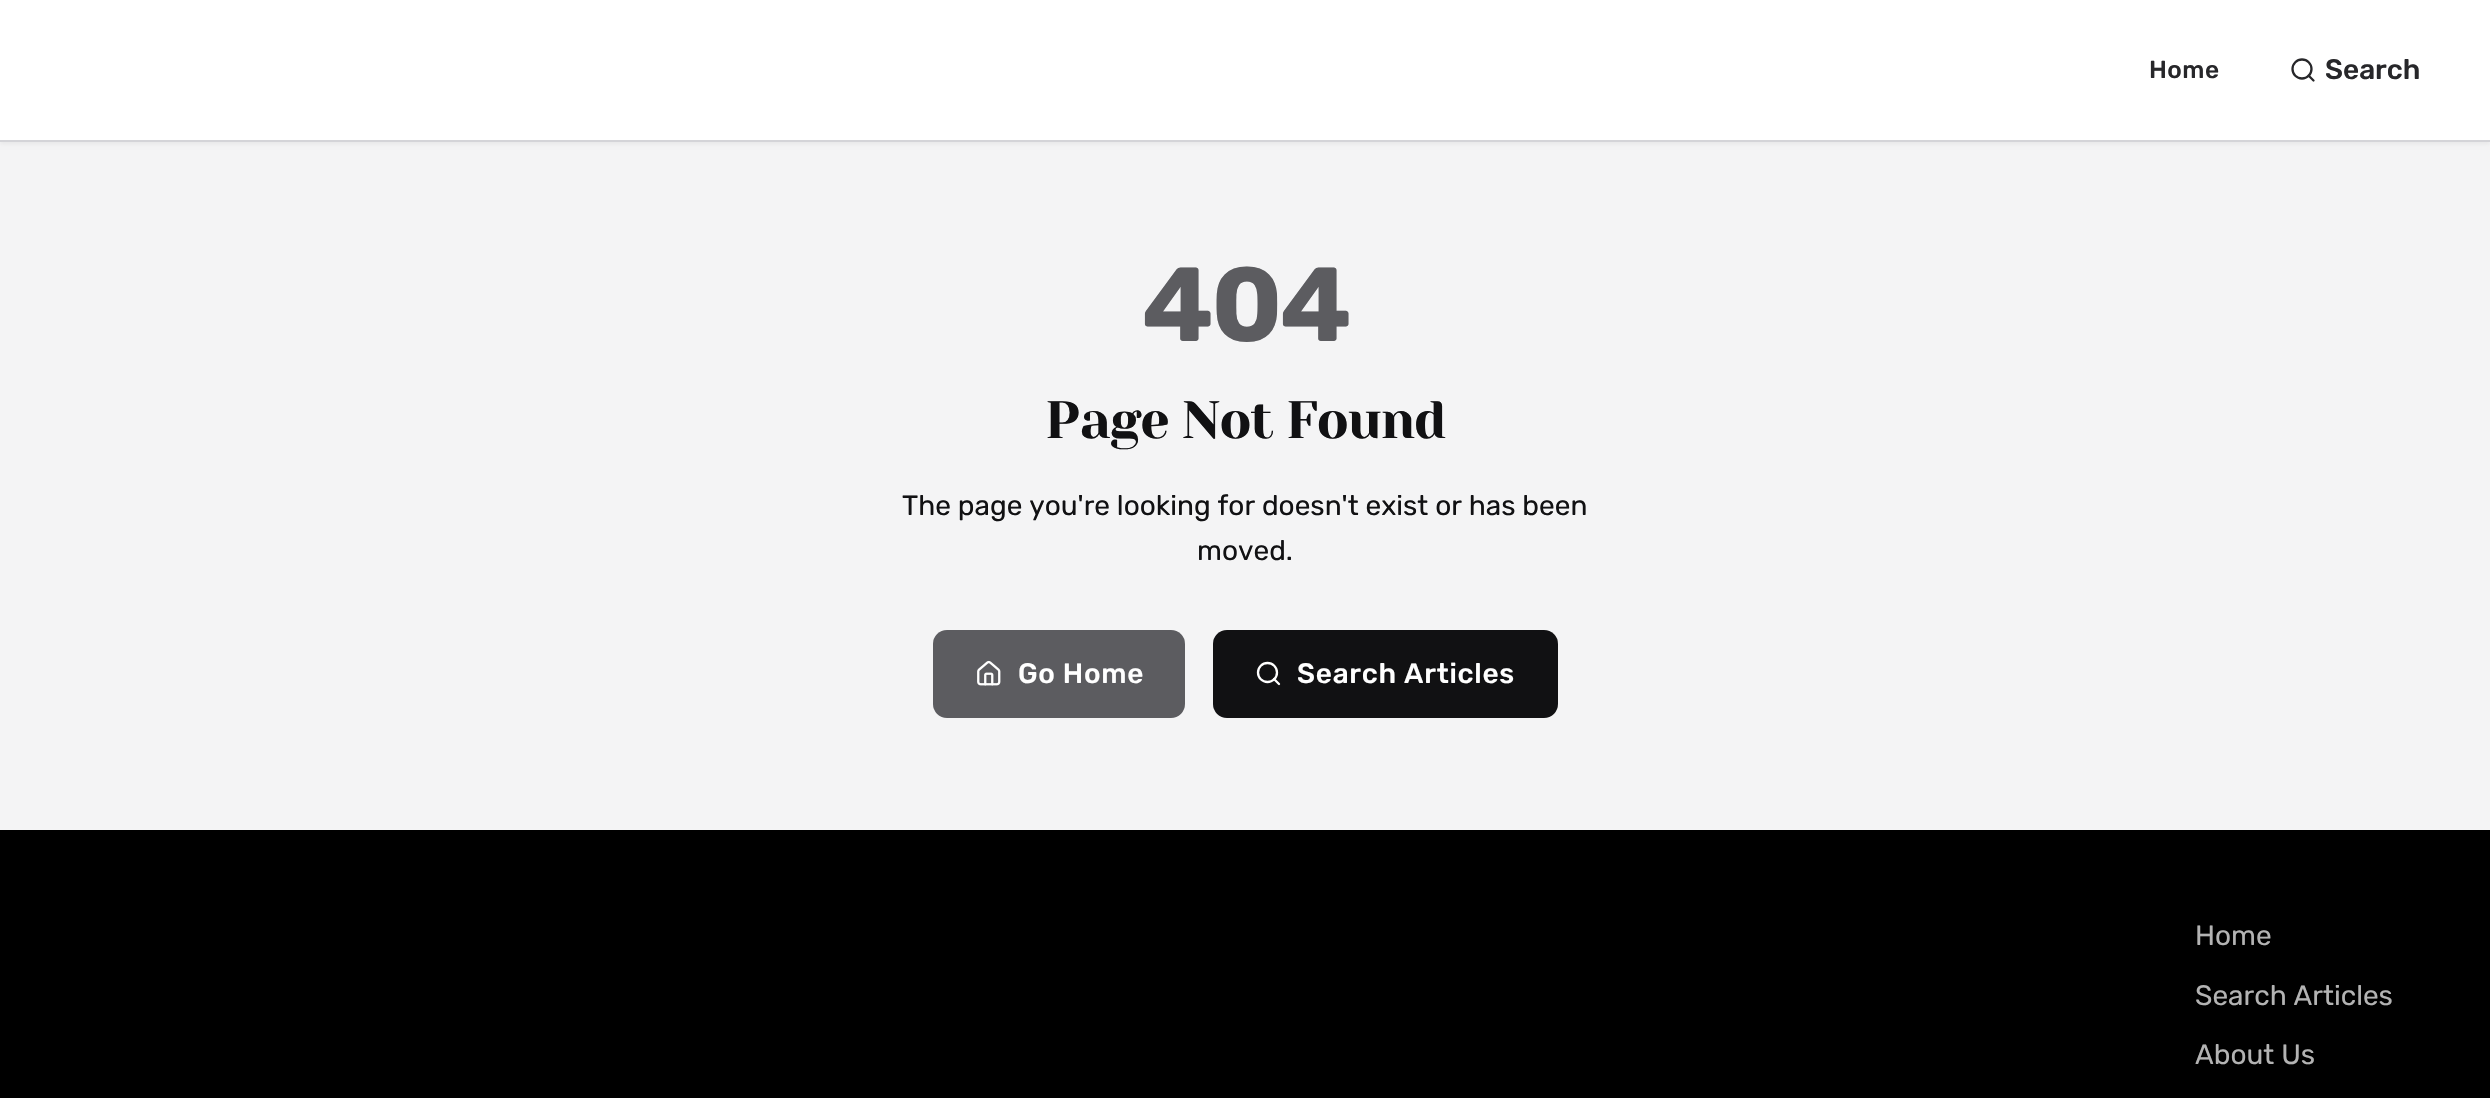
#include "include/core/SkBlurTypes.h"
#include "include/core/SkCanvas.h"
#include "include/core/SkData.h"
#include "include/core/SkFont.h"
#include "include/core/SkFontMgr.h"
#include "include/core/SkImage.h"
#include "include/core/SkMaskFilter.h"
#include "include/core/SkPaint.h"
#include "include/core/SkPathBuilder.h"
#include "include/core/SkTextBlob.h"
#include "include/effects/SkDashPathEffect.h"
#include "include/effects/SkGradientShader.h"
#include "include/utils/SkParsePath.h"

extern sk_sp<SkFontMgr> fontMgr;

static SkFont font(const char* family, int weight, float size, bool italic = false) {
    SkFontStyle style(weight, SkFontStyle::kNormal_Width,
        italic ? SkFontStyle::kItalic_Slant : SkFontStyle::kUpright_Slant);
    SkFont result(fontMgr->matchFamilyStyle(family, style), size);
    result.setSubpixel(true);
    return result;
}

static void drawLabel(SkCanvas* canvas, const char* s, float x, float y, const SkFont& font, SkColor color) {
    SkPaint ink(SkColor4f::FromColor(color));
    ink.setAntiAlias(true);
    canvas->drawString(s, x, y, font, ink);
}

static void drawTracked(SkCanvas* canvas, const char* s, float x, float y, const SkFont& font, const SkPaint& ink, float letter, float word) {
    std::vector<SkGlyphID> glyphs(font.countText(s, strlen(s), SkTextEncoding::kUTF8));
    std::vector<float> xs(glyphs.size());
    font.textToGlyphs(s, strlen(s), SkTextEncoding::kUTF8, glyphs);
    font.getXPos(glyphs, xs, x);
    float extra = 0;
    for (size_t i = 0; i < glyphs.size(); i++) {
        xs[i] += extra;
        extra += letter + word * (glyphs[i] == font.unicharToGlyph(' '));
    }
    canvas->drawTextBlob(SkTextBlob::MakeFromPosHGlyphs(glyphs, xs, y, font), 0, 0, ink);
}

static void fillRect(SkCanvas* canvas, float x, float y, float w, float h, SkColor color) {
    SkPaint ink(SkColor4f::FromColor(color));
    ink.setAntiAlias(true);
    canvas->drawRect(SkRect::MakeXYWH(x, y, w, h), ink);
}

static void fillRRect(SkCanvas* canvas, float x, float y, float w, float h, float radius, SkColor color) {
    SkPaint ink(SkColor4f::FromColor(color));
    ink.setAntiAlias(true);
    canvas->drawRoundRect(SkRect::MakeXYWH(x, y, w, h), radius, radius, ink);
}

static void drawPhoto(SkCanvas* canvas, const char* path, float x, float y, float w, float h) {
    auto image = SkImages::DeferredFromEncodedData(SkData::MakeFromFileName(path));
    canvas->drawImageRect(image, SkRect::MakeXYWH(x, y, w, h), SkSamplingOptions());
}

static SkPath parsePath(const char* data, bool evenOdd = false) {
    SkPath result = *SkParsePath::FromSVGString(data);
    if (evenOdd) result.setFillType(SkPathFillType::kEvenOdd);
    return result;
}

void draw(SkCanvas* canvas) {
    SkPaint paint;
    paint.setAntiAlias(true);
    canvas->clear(0xFFF4F4F5);
    paint.setColor(0x0D000000);
    paint.setMaskFilter(SkMaskFilter::MakeBlur(kNormal_SkBlurStyle, 2));
    canvas->drawRect(SkRect::MakeXYWH(0, 2, 2490, 142), paint);
    paint.setMaskFilter(nullptr);
    fillRect(canvas, 0, 0, 2490, 140, 0xFFFFFFFF);
    fillRect(canvas, 0, 140, 2490, 2, 0xFFD4D4D8);
    SkFont font1 = font("Rubik", 500, 24.5f);
    paint.setColor(0xFF27272A);
    drawTracked(canvas, "Home", 2149, 78, font1, paint, 0.5f, 0);
    paint.setStroke(true);
    paint.setStrokeWidth(2.3f);
    canvas->drawCircle(2302, 69, 9.5f, paint);
    paint.setStrokeCap(SkPaint::kRound_Cap);
    paint.setStrokeJoin(SkPaint::kRound_Join);
    canvas->drawPath(parsePath("M2313.5 80.5L2308.5 75.5"), paint);
    SkFont font2 = font("Rubik", 500, 28);
    drawLabel(canvas, "Search", 2325, 79, font2, 0xFF27272A);
    SkFont font3 = font("Rubik", 700, 105);
    paint.setStroke(false);
    paint.setColor(0xFF5C5C60);
    drawTracked(canvas, "404", 1142, 341, font3, paint, -2.5f, 0);
    SkFont font4 = font("Yeseva One", 400, 52.5f);
    paint.setColor(0xFF111113);
    drawTracked(canvas, "Page Not Found", 1045, 438, font4, paint, -1.25f, 0);
    SkFont font5 = font("Rubik", 400, 28);
    drawLabel(canvas, "The page you're looking for doesn't exist or has been", 902, 515, font5, 0xFF111113);
    drawLabel(canvas, "moved.", 1197, 560, font5, 0xFF111113);
    fillRRect(canvas, 933, 630, 252, 88, 14, 0xFF5C5C60);
    drawPhoto(canvas, "assets/img1.png", 977, 660, 24, 26);
    paint.setColor(0xFFFFFFFF);
    drawTracked(canvas, "Go Home", 1018, 683, font2, paint, 0.75f, 0);
    fillRRect(canvas, 1213, 630, 345, 88, 14, 0xFF111113);
    paint.setStroke(true);
    paint.setStrokeCap(SkPaint::kButt_Cap);
    paint.setStrokeJoin(SkPaint::kMiter_Join);
    canvas->drawCircle(1267.5f, 672.5f, 9.5f, paint);
    paint.setStrokeCap(SkPaint::kRound_Cap);
    paint.setStrokeJoin(SkPaint::kRound_Join);
    canvas->drawPath(parsePath("M1279 684L1274 679"), paint);
    paint.setStroke(false);
    drawTracked(canvas, "Search Articles", 1297, 683, font2, paint, 0.75f, 0);
    fillRect(canvas, 0, 830, 2490, 268, 0xFF000000);
    drawLabel(canvas, "Home", 2195, 945, font5, 0xFFB3B3B3);
    drawLabel(canvas, "Search Articles", 2195, 1005, font5, 0xFFB3B3B3);
    drawLabel(canvas, "About Us", 2195, 1064, font5, 0xFFB3B3B3);
}
